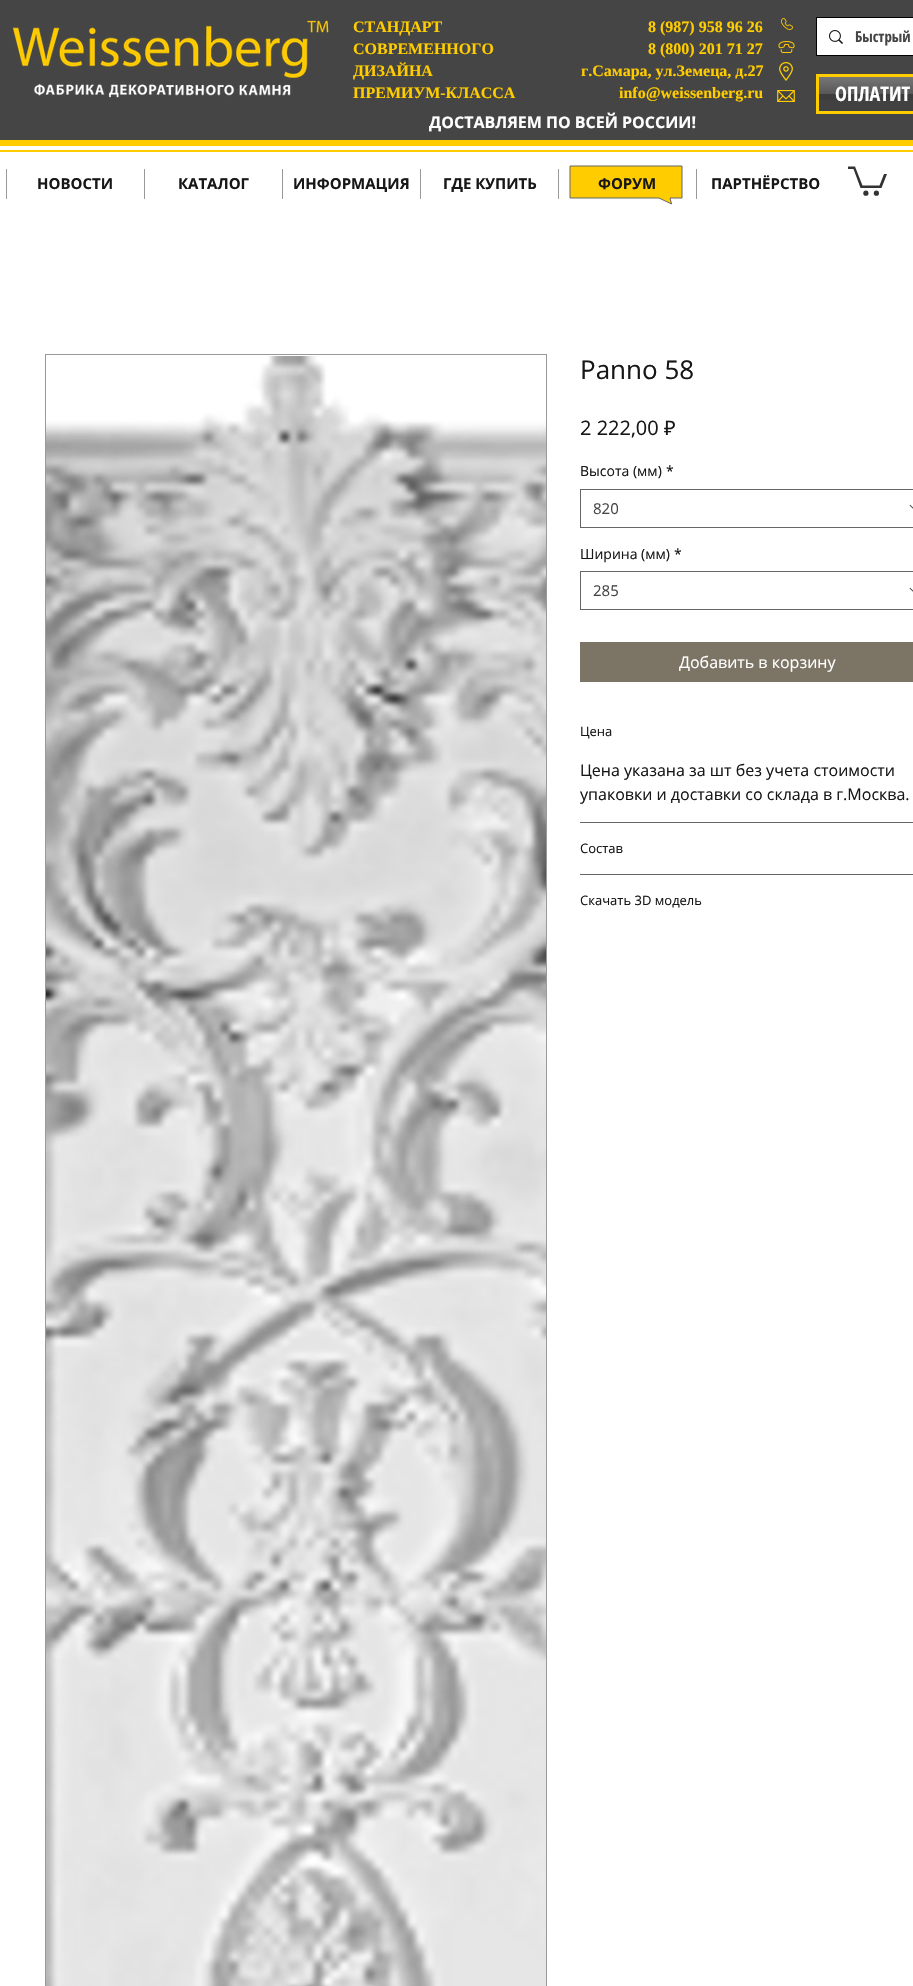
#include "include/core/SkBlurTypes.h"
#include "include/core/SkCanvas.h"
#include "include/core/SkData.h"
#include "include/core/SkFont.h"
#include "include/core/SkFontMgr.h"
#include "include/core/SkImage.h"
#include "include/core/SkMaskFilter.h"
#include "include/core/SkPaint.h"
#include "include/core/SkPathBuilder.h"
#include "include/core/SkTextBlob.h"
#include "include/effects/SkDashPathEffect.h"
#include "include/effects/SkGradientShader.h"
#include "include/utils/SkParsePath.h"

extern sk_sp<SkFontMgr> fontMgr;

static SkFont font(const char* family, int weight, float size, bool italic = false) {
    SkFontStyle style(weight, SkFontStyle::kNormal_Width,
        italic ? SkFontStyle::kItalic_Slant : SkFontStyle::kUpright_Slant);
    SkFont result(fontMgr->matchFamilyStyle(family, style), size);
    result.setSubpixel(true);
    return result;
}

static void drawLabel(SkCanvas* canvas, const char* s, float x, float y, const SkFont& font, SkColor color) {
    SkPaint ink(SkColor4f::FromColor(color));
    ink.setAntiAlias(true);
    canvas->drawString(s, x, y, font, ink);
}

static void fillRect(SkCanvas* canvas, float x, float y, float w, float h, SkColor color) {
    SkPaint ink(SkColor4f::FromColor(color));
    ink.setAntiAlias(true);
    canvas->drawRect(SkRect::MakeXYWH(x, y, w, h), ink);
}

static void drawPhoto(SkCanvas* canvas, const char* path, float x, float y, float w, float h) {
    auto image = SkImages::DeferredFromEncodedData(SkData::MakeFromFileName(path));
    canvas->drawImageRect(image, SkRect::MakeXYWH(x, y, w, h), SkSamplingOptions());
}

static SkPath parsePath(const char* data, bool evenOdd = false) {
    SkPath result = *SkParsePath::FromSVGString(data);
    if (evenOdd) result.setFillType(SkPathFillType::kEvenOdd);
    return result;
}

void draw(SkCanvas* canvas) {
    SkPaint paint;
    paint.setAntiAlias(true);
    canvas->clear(0xFFFFFFFF);
    fillRect(canvas, 0, 0, 913, 140, 0xFF454545);
    fillRect(canvas, 0, 140, 913, 6, 0xFFFFCC00);
    fillRect(canvas, 0, 150, 913, 2, 0xFFFFCC00);
    drawPhoto(canvas, "assets/img1.png", 12, 20, 317, 78);
    SkFont font1 = font("Liberation Serif", 700, 16);
    drawLabel(canvas, "СТАНДАРТ", 353, 32, font1, 0xFFFFCC00);
    drawLabel(canvas, "СОВРЕМЕННОГО", 353, 54, font1, 0xFFFFCC00);
    drawLabel(canvas, "ДИЗАЙНА", 353, 76, font1, 0xFFFFCC00);
    drawLabel(canvas, "ПРЕМИУМ-КЛАССА", 353, 98, font1, 0xFFFFCC00);
    drawLabel(canvas, "8 (987) 958 96 26", 648, 32, font1, 0xFFFFCC00);
    drawLabel(canvas, "8 (800) 201 71 27", 648, 54, font1, 0xFFFFCC00);
    drawLabel(canvas, "г.Самара, ул.Земеца, д.27", 581, 76, font1, 0xFFFFCC00);
    drawLabel(canvas, "info@weissenberg.ru", 619, 98, font1, 0xFFFFCC00);
    drawPhoto(canvas, "assets/img2.png", 781, 18, 12, 12);
    drawPhoto(canvas, "assets/img3.png", 778, 41, 17, 12);
    drawPhoto(canvas, "assets/img4.png", 779, 62, 14, 19);
    drawPhoto(canvas, "assets/img5.png", 777, 90, 18, 12);
    paint.setStroke(true);
    paint.setStrokeWidth(1);
    paint.setColor(0xFF000000);
    canvas->drawRect(SkRect::MakeXYWH(816.5f, 17.5f, 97, 38), paint);
    fillRect(canvas, 817, 18, 96, 37, 0xFFFFFFFF);
    drawPhoto(canvas, "assets/img6.png", 829, 30, 14, 14);
    SkFont font2 = font("Open Sans Condensed", 700, 15);
    drawLabel(canvas, "Быстрый", 855, 42, font2, 0xFF454545);
    fillRect(canvas, 819, 77, 94, 34, 0xFF414141);
    drawPhoto(canvas, "assets/img7.png", 819, 77, 94, 23);
    paint.setStrokeWidth(3);
    paint.setColor(0xFFFFCC00);
    canvas->drawRect(SkRect::MakeXYWH(817.5f, 75.5f, 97, 37), paint);
    SkFont font3 = font("Open Sans Condensed", 700, 20);
    drawLabel(canvas, "ОПЛАТИТ", 835, 101, font3, 0xFFFFFFFF);
    SkFont font4 = font("Open Sans", 700, 16);
    drawLabel(canvas, "ДОСТАВЛЯЕМ ПО ВСЕЙ РОССИИ!", 429, 128, font4, 0xFFFFFFFF);
    paint.setStroke(false);
    canvas->drawPath(parsePath("M682 166H570V198H659L672 204L670 198H682Z"), paint);
    paint.setStroke(true);
    paint.setStrokeWidth(1);
    paint.setColor(0xFF666666);
    canvas->drawPath(parsePath("M682 166H570V198H659L671.5 204L670 198H682Z"), paint);
    paint.setStroke(false);
    paint.setColor(0xFF333333);
    canvas->drawPath(parsePath("M887 174L881.5 188H860.5L853.5 169H848V166.5H855L862.5 185.5H879.5L884 174"), paint);
    canvas->drawCircle(876.4f, 193.2f, 2.6f, paint);
    canvas->drawCircle(865.9f, 193.2f, 2.6f, paint);
    fillRect(canvas, 6, 169, 1, 30, 0xFF999999);
    SkFont font5 = font("Open Sans", 700, 15);
    drawLabel(canvas, "НОВОСТИ", 37, 189, font5, 0xFF181717);
    fillRect(canvas, 144, 169, 1, 30, 0xFF999999);
    drawLabel(canvas, "КАТАЛОГ", 178, 189, font5, 0xFF181717);
    fillRect(canvas, 282, 169, 1, 30, 0xFF999999);
    drawLabel(canvas, "ИНФОРМАЦИЯ", 293, 189, font5, 0xFF181717);
    fillRect(canvas, 420, 169, 1, 30, 0xFF999999);
    drawLabel(canvas, "ГДЕ КУПИТЬ", 443, 189, font5, 0xFF181717);
    fillRect(canvas, 558, 169, 1, 30, 0xFF999999);
    drawLabel(canvas, "ФОРУМ", 598, 189, font5, 0xFF181717);
    fillRect(canvas, 696, 169, 1, 30, 0xFF999999);
    drawLabel(canvas, "ПАРТНЁРСТВО", 711, 189, font5, 0xFF181717);
    paint.setStroke(true);
    paint.setColor(0xFF999999);
    canvas->drawRect(SkRect::MakeXYWH(45.5f, 354.5f, 501, 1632), paint);
    drawPhoto(canvas, "assets/img8.png", 46, 356, 500, 1630);
    SkFont font6 = font("Open Sans", 400, 26);
    drawLabel(canvas, "Panno 58", 580, 379, font6, 0xFF181717);
    SkFont font7 = font("Open Sans", 400, 20);
    drawLabel(canvas, "2 222,00", 580, 435, font7, 0xFF181717);
    SkFont font8 = font("Noto Sans", 400, 20);
    drawLabel(canvas, "₽", 664, 435, font8, 0xFF181717);
    SkFont font9 = font("Open Sans", 400, 14);
    drawLabel(canvas, "Высота (мм)", 580, 476, font9, 0xFF181717);
    drawLabel(canvas, "*", 666, 476, font9, 0xFF181717);
    paint.setColor(0xFF666666);
    canvas->drawRect(SkRect::MakeXYWH(580.5f, 489.5f, 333, 38), paint);
    SkFont font10 = font("Open Sans", 400, 15);
    drawLabel(canvas, "820", 593, 514, font10, 0xFF454545);
    drawPhoto(canvas, "assets/img9.png", 909, 504, 4, 5);
    drawLabel(canvas, "Ширина (мм)", 580, 559, font9, 0xFF181717);
    drawLabel(canvas, "*", 674, 559, font9, 0xFF181717);
    canvas->drawRect(SkRect::MakeXYWH(580.5f, 571.5f, 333, 38), paint);
    drawLabel(canvas, "285", 593, 596, font10, 0xFF454545);
    drawPhoto(canvas, "assets/img9.png", 909, 587, 4, 5);
    fillRect(canvas, 580, 642, 333, 40, 0xFF7C7464);
    SkFont font11 = font("Open Sans", 400, 16);
    drawLabel(canvas, "Добавить в корзину", 679, 668, font11, 0xFFFFFFFF);
    fillRect(canvas, 580, 822, 333, 1, 0xFF666666);
    SkFont font12 = font("Open Sans", 400, 13);
    drawLabel(canvas, "Цена", 580, 736, font12, 0xFF181717);
    drawLabel(canvas, "Цена указана за шт без учета стоимости", 580, 776, font11, 0xFF181717);
    drawLabel(canvas, "упаковки и доставки со склада в г.Москва.", 580, 800, font11, 0xFF181717);
    fillRect(canvas, 580, 874, 333, 1, 0xFF666666);
    drawLabel(canvas, "Состав", 580, 853, font12, 0xFF181717);
    drawLabel(canvas, "Скачать 3D модель", 580, 905, font12, 0xFF181717);
}
